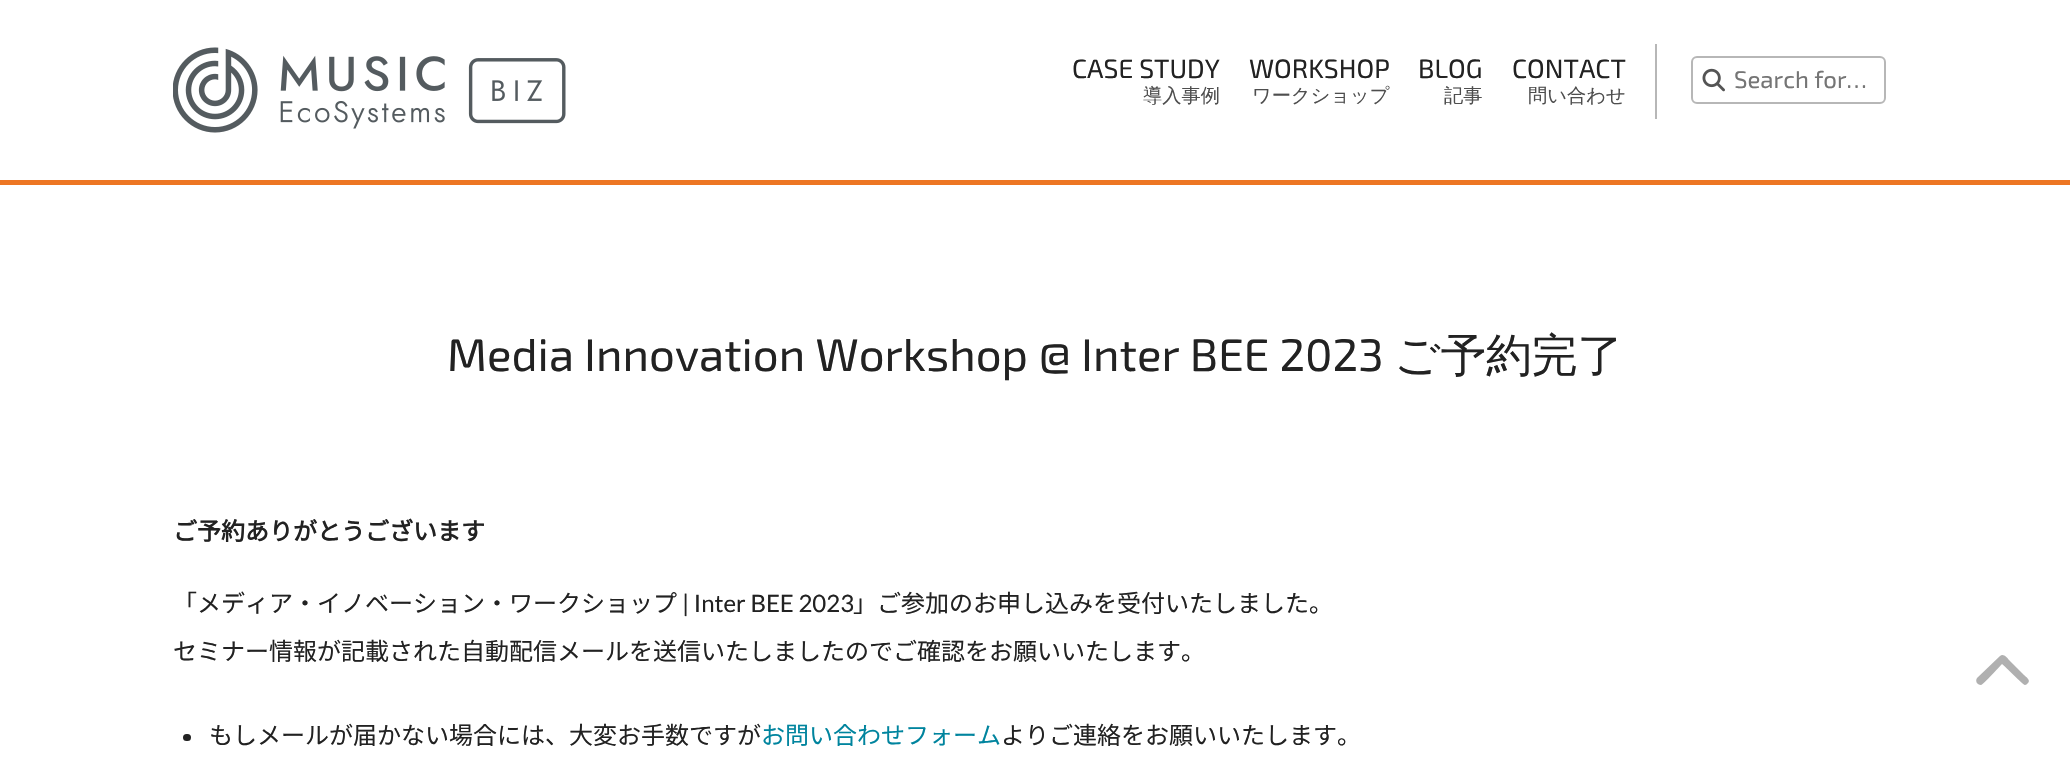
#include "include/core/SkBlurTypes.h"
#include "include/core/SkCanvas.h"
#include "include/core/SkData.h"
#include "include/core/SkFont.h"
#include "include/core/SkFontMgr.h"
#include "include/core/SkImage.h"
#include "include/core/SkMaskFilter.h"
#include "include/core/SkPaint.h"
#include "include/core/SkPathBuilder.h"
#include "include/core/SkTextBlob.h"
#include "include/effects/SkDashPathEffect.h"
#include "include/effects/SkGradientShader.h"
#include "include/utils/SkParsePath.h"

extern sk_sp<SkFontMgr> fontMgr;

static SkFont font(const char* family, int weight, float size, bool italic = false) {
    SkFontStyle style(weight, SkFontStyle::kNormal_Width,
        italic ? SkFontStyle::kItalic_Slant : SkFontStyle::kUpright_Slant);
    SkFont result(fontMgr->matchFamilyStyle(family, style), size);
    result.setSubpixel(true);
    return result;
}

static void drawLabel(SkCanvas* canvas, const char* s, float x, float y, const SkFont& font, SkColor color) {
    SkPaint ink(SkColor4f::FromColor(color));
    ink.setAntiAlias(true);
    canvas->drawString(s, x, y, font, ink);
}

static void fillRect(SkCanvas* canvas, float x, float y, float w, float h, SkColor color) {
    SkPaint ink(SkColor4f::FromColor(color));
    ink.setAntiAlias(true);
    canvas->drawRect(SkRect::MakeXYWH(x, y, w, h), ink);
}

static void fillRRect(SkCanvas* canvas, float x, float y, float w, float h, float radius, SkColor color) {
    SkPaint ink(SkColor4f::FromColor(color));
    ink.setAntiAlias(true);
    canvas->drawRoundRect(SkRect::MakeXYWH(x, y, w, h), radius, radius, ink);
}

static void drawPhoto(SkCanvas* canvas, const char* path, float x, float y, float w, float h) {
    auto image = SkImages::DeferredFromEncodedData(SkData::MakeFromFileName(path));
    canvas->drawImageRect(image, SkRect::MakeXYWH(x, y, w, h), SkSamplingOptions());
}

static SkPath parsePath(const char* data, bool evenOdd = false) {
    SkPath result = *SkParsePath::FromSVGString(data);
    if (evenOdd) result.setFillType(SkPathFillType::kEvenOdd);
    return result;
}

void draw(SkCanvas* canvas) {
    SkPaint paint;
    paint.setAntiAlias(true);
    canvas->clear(0xFFFFFFFF);
    fillRect(canvas, 0, 180, 2070, 5, 0xFFED7623);
    drawPhoto(canvas, "assets/img1.png", 173, 47, 393, 86);
    SkFont font1 = font("Exo 2", 400, 26.5f);
    drawLabel(canvas, "CASE STUDY", 1072, 78, font1, 0xFF222222);
    SkFont font2 = font("WenQuanYi Zen Hei", 500, 19.25f);
    drawLabel(canvas, "導入事例", 1143, 102, font2, 0xFF4E4E4E);
    drawLabel(canvas, "WORKSHOP", 1249, 78, font1, 0xFF222222);
    drawLabel(canvas, "ワークショップ", 1252, 102, font2, 0xFF4E4E4E);
    drawLabel(canvas, "BLOG", 1418, 78, font1, 0xFF222222);
    drawLabel(canvas, "記事", 1444, 102, font2, 0xFF4E4E4E);
    drawLabel(canvas, "CONTACT", 1512, 78, font1, 0xFF222222);
    drawLabel(canvas, "問い合わせ", 1528, 102, font2, 0xFF4E4E4E);
    fillRect(canvas, 1655, 44, 2, 75, 0xFFB7B7B7);
    paint.setStroke(true);
    paint.setStrokeWidth(2);
    paint.setColor(0xFFB7B7B7);
    canvas->drawRoundRect(SkRect::MakeXYWH(1692, 57, 193, 46), 5, 5, paint);
    drawPhoto(canvas, "assets/img2.png", 1702, 68, 23, 24);
    SkFont font3 = font("Exo 2", 400, 24);
    drawLabel(canvas, "Search for…", 1734, 88, font3, 0xFF757575);
    SkFont font4 = font("Exo 2", 400, 45.6f);
    drawLabel(canvas, "Media Innovation Workshop @ Inter BEE 2023", 447, 371, font4, 0xFF222222);
    SkFont font5 = font("WenQuanYi Zen Hei", 500, 45.6f);
    drawLabel(canvas, "ご予約完了", 1394, 371, font5, 0xFF222222);
    SkFont font6 = font("Noto Sans JP", 700, 24);
    drawLabel(canvas, "ご予約ありがとうございます", 173, 540, font6, 0xFF222222);
    SkFont font7 = font("Noto Sans JP", 100, 24);
    drawLabel(canvas, "「メディア・イノベーション・ワークショップ", 173, 612, font7, 0xFF222222);
    SkFont font8 = font("Lato", 400, 24);
    drawLabel(canvas, "| Inter BEE 2023", 682, 612, font8, 0xFF222222);
    drawLabel(canvas, "」ご参加のお申し込みを受付いたしました。", 853, 612, font7, 0xFF222222);
    drawLabel(canvas, "セミナー情報が記載された自動配信メールを送信いたしましたのでご確認をお願いいたします。", 173, 660, font7, 0xFF222222);
    fillRRect(canvas, 183, 734, 8, 7, 3.5f, 0xFF222222);
    drawLabel(canvas, "もしメールが届かない場合には、大変お手数ですが", 209, 744, font7, 0xFF222222);
    drawLabel(canvas, "お問い合わせフォーム", 761, 744, font7, 0xFF00849E);
    drawLabel(canvas, "よりご連絡をお願いいたします。", 1001, 744, font7, 0xFF222222);
    paint.setStroke(false);
    paint.setColor(0xFFB0B0B0);
    canvas->drawPath(parsePath("M2000 656C2003 653 2007 657 2009 660L2024 675C2026 677 2031 680 2028 683C2027 684 2026 685 2025 685C2022 684 2006 667 2002 664C1999 667 1984 684 1981 685C1977 685 1975 681 1977 678Z"), paint);
}
